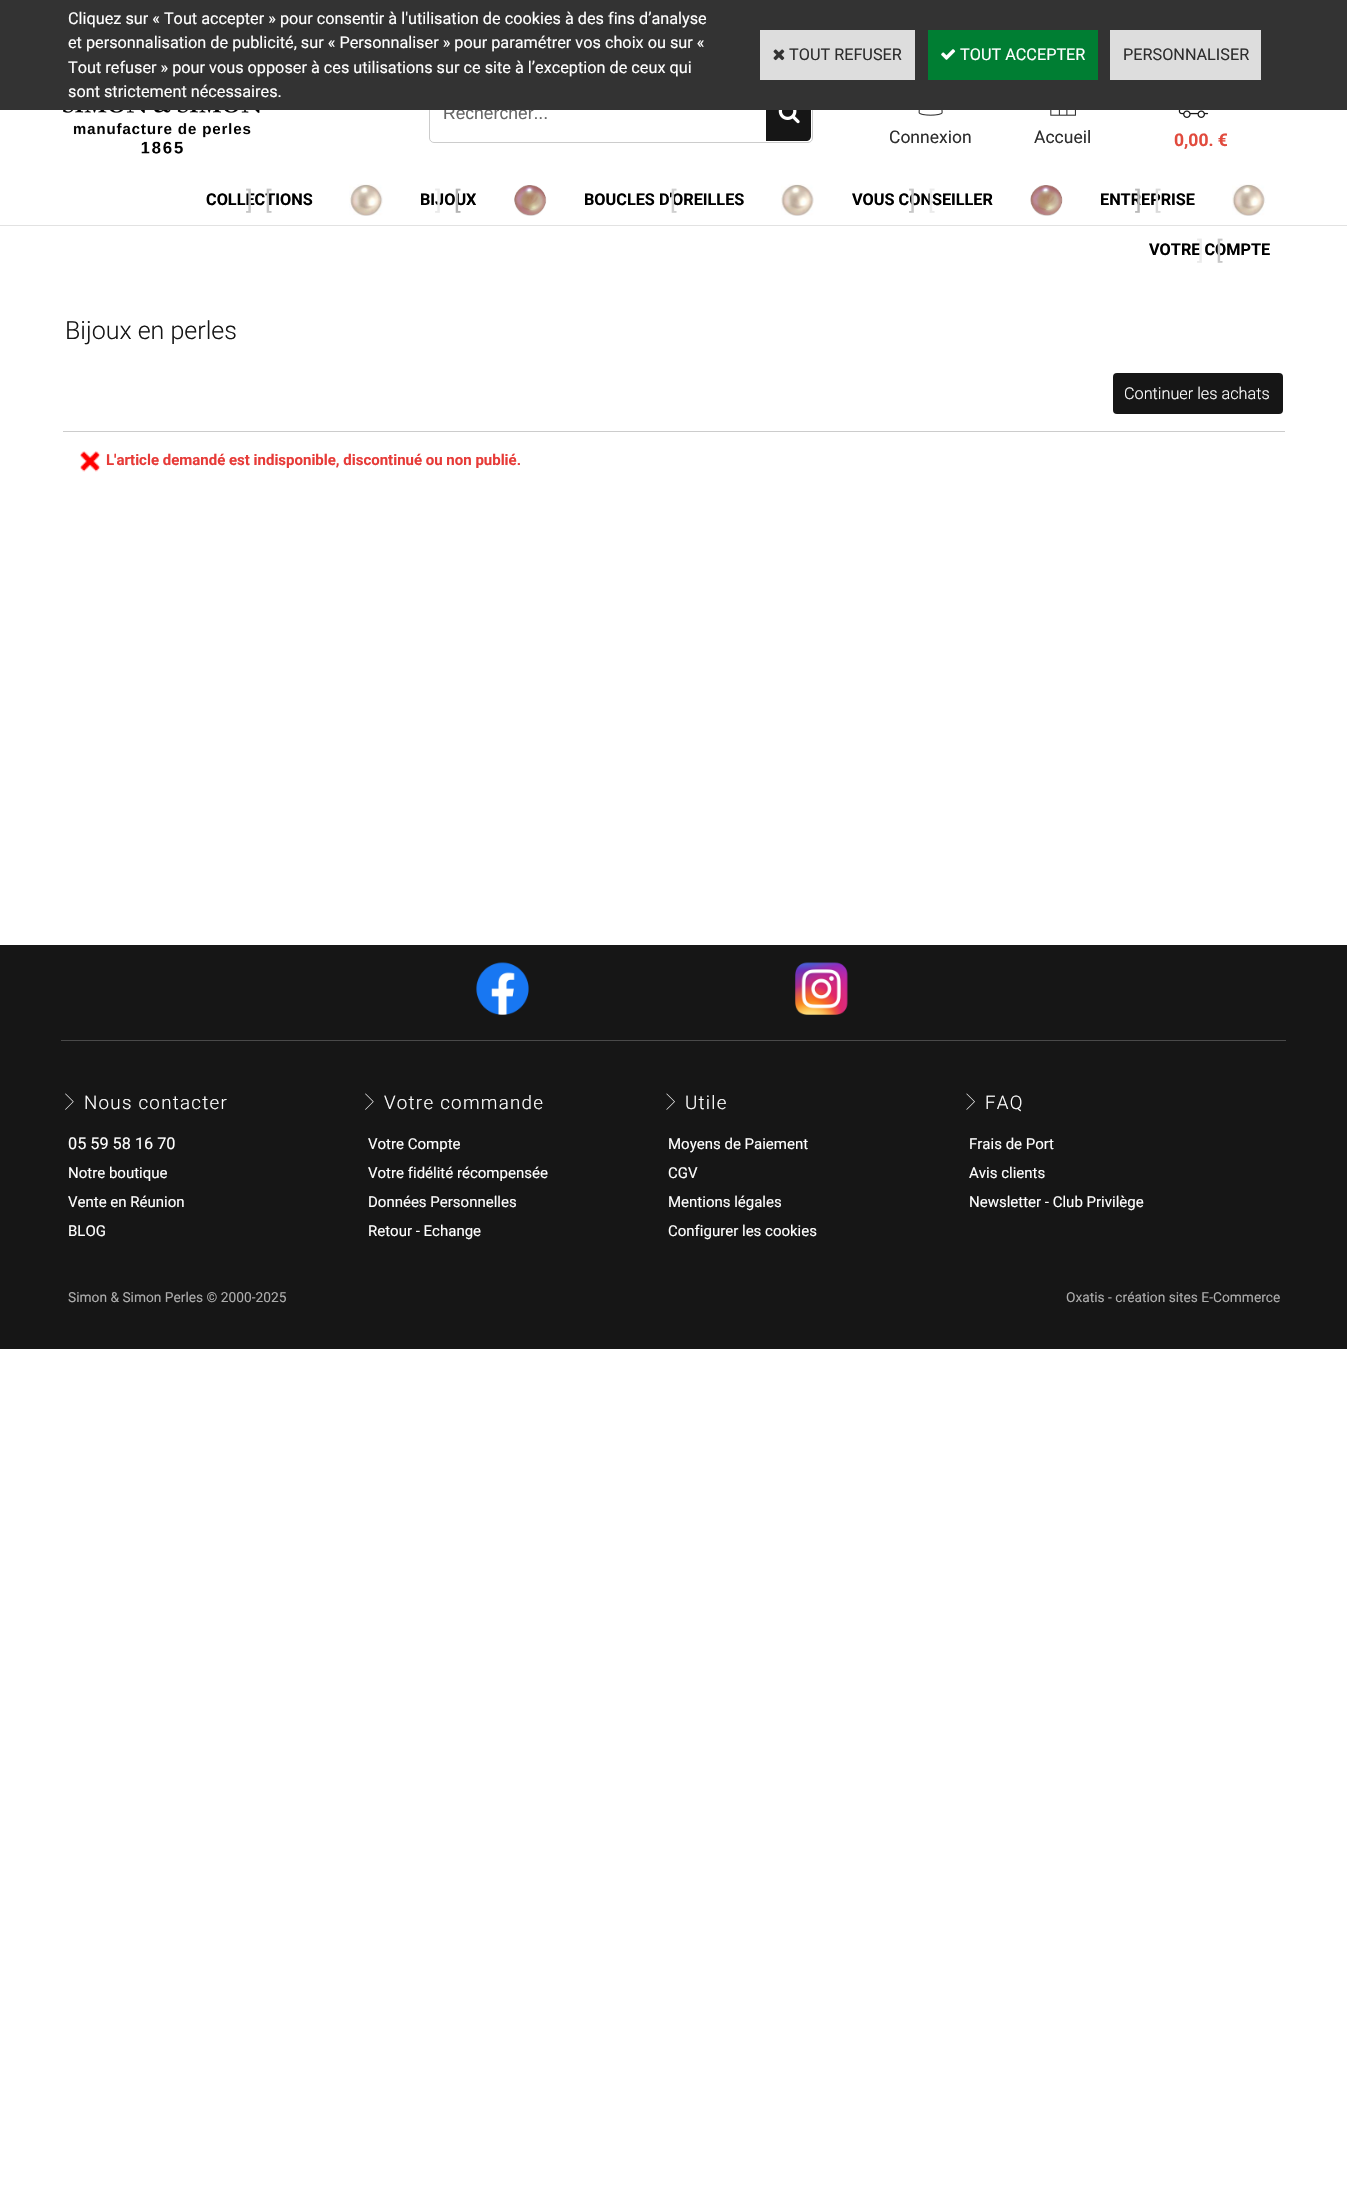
#include "include/core/SkBlurTypes.h"
#include "include/core/SkCanvas.h"
#include "include/core/SkData.h"
#include "include/core/SkFont.h"
#include "include/core/SkFontMgr.h"
#include "include/core/SkImage.h"
#include "include/core/SkMaskFilter.h"
#include "include/core/SkPaint.h"
#include "include/core/SkPathBuilder.h"
#include "include/core/SkTextBlob.h"
#include "include/effects/SkDashPathEffect.h"
#include "include/effects/SkGradientShader.h"
#include "include/utils/SkParsePath.h"

extern sk_sp<SkFontMgr> fontMgr;

static SkFont font(const char* family, int weight, float size, bool italic = false) {
    SkFontStyle style(weight, SkFontStyle::kNormal_Width,
        italic ? SkFontStyle::kItalic_Slant : SkFontStyle::kUpright_Slant);
    SkFont result(fontMgr->matchFamilyStyle(family, style), size);
    result.setSubpixel(true);
    return result;
}

static void drawLabel(SkCanvas* canvas, const char* s, float x, float y, const SkFont& font, SkColor color) {
    SkPaint ink(SkColor4f::FromColor(color));
    ink.setAntiAlias(true);
    canvas->drawString(s, x, y, font, ink);
}

static void drawTracked(SkCanvas* canvas, const char* s, float x, float y, const SkFont& font, const SkPaint& ink, float letter, float word) {
    std::vector<SkGlyphID> glyphs(font.countText(s, strlen(s), SkTextEncoding::kUTF8));
    std::vector<float> xs(glyphs.size());
    font.textToGlyphs(s, strlen(s), SkTextEncoding::kUTF8, glyphs);
    font.getXPos(glyphs, xs, x);
    float extra = 0;
    for (size_t i = 0; i < glyphs.size(); i++) {
        xs[i] += extra;
        extra += letter + word * (glyphs[i] == font.unicharToGlyph(' '));
    }
    canvas->drawTextBlob(SkTextBlob::MakeFromPosHGlyphs(glyphs, xs, y, font), 0, 0, ink);
}

static void fillRect(SkCanvas* canvas, float x, float y, float w, float h, SkColor color) {
    SkPaint ink(SkColor4f::FromColor(color));
    ink.setAntiAlias(true);
    canvas->drawRect(SkRect::MakeXYWH(x, y, w, h), ink);
}

static void fillRRect(SkCanvas* canvas, float x, float y, float w, float h, float radius, SkColor color) {
    SkPaint ink(SkColor4f::FromColor(color));
    ink.setAntiAlias(true);
    canvas->drawRoundRect(SkRect::MakeXYWH(x, y, w, h), radius, radius, ink);
}

static void drawPhoto(SkCanvas* canvas, const char* path, float x, float y, float w, float h) {
    auto image = SkImages::DeferredFromEncodedData(SkData::MakeFromFileName(path));
    canvas->drawImageRect(image, SkRect::MakeXYWH(x, y, w, h), SkSamplingOptions());
}

static SkPath parsePath(const char* data, bool evenOdd = false) {
    SkPath result = *SkParsePath::FromSVGString(data);
    if (evenOdd) result.setFillType(SkPathFillType::kEvenOdd);
    return result;
}

void draw(SkCanvas* canvas) {
    SkPaint paint;
    paint.setAntiAlias(true);
    canvas->clear(0xFFFFFFFF);
    paint.setStroke(true);
    paint.setStrokeWidth(1);
    paint.setColor(0xFFCCCCCC);
    canvas->drawRoundRect(SkRect::MakeXYWH(429.5f, 84.5f, 383, 58), 4.5f, 4.5f, paint);
    SkFont font1 = font("Liberation Sans", 400, 17.5f);
    drawLabel(canvas, "Rechercher...", 443, 119, font1, 0xFF666666);
    paint.setStroke(false);
    paint.setColor(0xFF161616);
    canvas->drawPath(parsePath("M766 85H806C809 85 811 87 811 90V136C811 139 809 141 806 141H766Z"), paint);
    fillRect(canvas, 0, 0, 1347, 110, 0xFF333333);
    SkFont font2 = font("Roboto", 400, 16.25f);
    drawLabel(canvas, "Cliquez sur « Tout accepter » pour consentir à l'utilisation de cookies à des fins d’analyse", 68, 24, font2, 0xFFFFFFFF);
    drawLabel(canvas, "et personnalisation de publicité, sur « Personnaliser » pour paramétrer vos choix ou sur «", 68, 48, font2, 0xFFFFFFFF);
    drawLabel(canvas, "Tout refuser » pour vous opposer à ces utilisations sur ce site à l’exception de ceux qui", 68, 73, font2, 0xFFFFFFFF);
    drawLabel(canvas, "sont strictement nécessaires.", 68, 97, font2, 0xFFFFFFFF);
    fillRect(canvas, 760, 30, 155, 50, 0xFFDDDDDD);
    drawPhoto(canvas, "assets/img1.png", 773, 49, 12, 12);
    drawLabel(canvas, "TOUT REFUSER", 789, 60, font2, 0xFF2E2E2E);
    fillRect(canvas, 928, 30, 170, 50, 0xFF007E33);
    drawPhoto(canvas, "assets/img2.png", 941, 49, 15, 11);
    drawLabel(canvas, "TOUT ACCEPTER", 960, 60, font2, 0xFFFFFFFF);
    fillRect(canvas, 1110, 30, 151, 50, 0xFFDDDDDD);
    drawLabel(canvas, "PERSONNALISER", 1123, 60, font2, 0xFF2E2E2E);
    fillRect(canvas, 0, 225, 1347, 1, 0xFFE2E2E2);
    drawPhoto(canvas, "assets/img3.png", 63, 110, 197, 44);
    drawPhoto(canvas, "assets/img4.png", 778, 110, 22, 14);
    drawPhoto(canvas, "assets/img5.png", 918, 110, 25, 6);
    SkFont font3 = font("Roboto", 400, 17.5f);
    drawLabel(canvas, "Connexion", 889, 143, font3, 0xFF2E2E2E);
    drawPhoto(canvas, "assets/img6.png", 1050, 110, 26, 6);
    drawLabel(canvas, "Accueil", 1034, 143, font3, 0xFF2E2E2E);
    drawPhoto(canvas, "assets/img7.png", 1178, 110, 31, 8);
    SkFont font4 = font("Roboto", 700, 17.5f);
    drawLabel(canvas, "0,00. €", 1174, 146, font4, 0xFFE14A3D);
    SkFont font5 = font("Roboto", 700, 16.25f);
    drawLabel(canvas, "COLLECTIONS", 206, 205, font5, 0xFF000000);
    SkFont font6 = font("Roboto", 400, 25);
    drawLabel(canvas, "]", 246, 209, font6, 0xFFC7C7C7);
    drawLabel(canvas, "[", 265, 209, font6, 0xFFC7C7C7);
    drawPhoto(canvas, "assets/img8.png", 349, 184, 34, 32);
    drawLabel(canvas, "BIJOUX", 420, 205, font5, 0xFF000000);
    drawLabel(canvas, "]", 435, 209, font6, 0xFFEBEBEB);
    drawLabel(canvas, "[", 454, 209, font6, 0xFFB3B3B3);
    drawPhoto(canvas, "assets/img9.png", 514, 185, 33, 31);
    drawLabel(canvas, "BOUCLES D'OREILLES", 584, 205, font5, 0xFF000000);
    drawLabel(canvas, "[", 670, 209, font6, 0xFFCFCFCF);
    drawPhoto(canvas, "assets/img10.png", 781, 184, 33, 32);
    drawLabel(canvas, "VOUS CONSEILLER", 852, 205, font5, 0xFF000000);
    drawLabel(canvas, "]", 909, 209, font6, 0xFFC7C7C7);
    drawLabel(canvas, "[", 928, 209, font6, 0xFFEBEBEB);
    drawPhoto(canvas, "assets/img11.png", 1030, 185, 33, 31);
    drawLabel(canvas, "ENTREPRISE", 1100, 205, font5, 0xFF000000);
    drawLabel(canvas, "]", 1135, 209, font6, 0xFFBABABA);
    drawLabel(canvas, "[", 1154, 209, font6, 0xFFDADADA);
    drawPhoto(canvas, "assets/img12.png", 1232, 184, 34, 32);
    drawLabel(canvas, "VOTRE COMPTE", 1149, 255, font5, 0xFF000000);
    drawLabel(canvas, "]", 1197, 259, font6, 0xFFEBEBEB);
    drawLabel(canvas, "[", 1216, 259, font6, 0xFFC7C7C7);
    SkFont font7 = font("Roboto", 300, 25);
    drawLabel(canvas, "Bijoux en perles", 65, 339, font7, 0xFF161616);
    fillRRect(canvas, 1113, 373, 170, 41, 4, 0xFF161616);
    SkFont font8 = font("Roboto", 300, 16.25f);
    drawLabel(canvas, "Continuer les achats", 1124, 399, font8, 0xFFFFFFFF);
    fillRect(canvas, 63, 431, 1222, 1, 0xFFCCCCCC);
    drawPhoto(canvas, "assets/img13.png", 80, 451, 21, 21);
    SkFont font9 = font("Roboto", 700, 15);
    drawLabel(canvas, "L'article demandé est indisponible, discontinué ou non publié.", 106, 465, font9, 0xFFE73B38);
    fillRect(canvas, 0, 945, 1347, 404, 0xFF161616);
    fillRect(canvas, 61, 1040, 1225, 1, 0xFF494949);
    drawPhoto(canvas, "assets/img14.png", 476, 962, 53, 53);
    drawPhoto(canvas, "assets/img15.png", 795, 962, 53, 53);
    drawPhoto(canvas, "assets/img16.png", 65, 1093, 9, 17);
    SkFont font10 = font("Roboto", 300, 18.75f);
    paint.setColor(0xFFFFFFFF);
    drawTracked(canvas, "Nous contacter", 84, 1109, font10, paint, 1.25f, 0);
    drawPhoto(canvas, "assets/img16.png", 365, 1093, 9, 17);
    drawTracked(canvas, "Votre commande", 384, 1109, font10, paint, 1.25f, 0);
    drawPhoto(canvas, "assets/img17.png", 666, 1093, 9, 17);
    drawTracked(canvas, "Utile", 685, 1109, font10, paint, 1.25f, 0);
    drawPhoto(canvas, "assets/img17.png", 966, 1093, 9, 17);
    drawTracked(canvas, "FAQ", 985, 1109, font10, paint, 1.25f, 0);
    drawLabel(canvas, "05 59 58 16 70", 68, 1149, font2, 0xFFFFFFFF);
    SkFont font11 = font("Roboto", 400, 15);
    drawLabel(canvas, "Votre Compte", 368, 1149, font11, 0xFFFFFFFF);
    drawLabel(canvas, "Moyens de Paiement", 668, 1149, font11, 0xFFFFFFFF);
    drawLabel(canvas, "Frais de Port", 969, 1149, font11, 0xFFFFFFFF);
    drawLabel(canvas, "Notre boutique", 68, 1178, font11, 0xFFFFFFFF);
    drawLabel(canvas, "Votre fidélité récompensée", 368, 1178, font11, 0xFFFFFFFF);
    drawLabel(canvas, "CGV", 668, 1178, font11, 0xFFFFFFFF);
    drawLabel(canvas, "Avis clients", 969, 1178, font11, 0xFFFFFFFF);
    drawLabel(canvas, "Vente en Réunion", 68, 1207, font11, 0xFFFFFFFF);
    drawLabel(canvas, "Données Personnelles", 368, 1207, font11, 0xFFFFFFFF);
    drawLabel(canvas, "Mentions légales", 668, 1207, font11, 0xFFFFFFFF);
    drawLabel(canvas, "Newsletter - Club Privilège", 969, 1207, font11, 0xFFFFFFFF);
    drawLabel(canvas, "BLOG", 68, 1236, font11, 0xFFFFFFFF);
    drawLabel(canvas, "Retour - Echange", 368, 1236, font11, 0xFFFFFFFF);
    drawLabel(canvas, "Configurer les cookies", 668, 1236, font11, 0xFFFFFFFF);
    SkFont font12 = font("Roboto", 400, 13.75f);
    drawLabel(canvas, "Simon & Simon Perles © 2000-2025", 68, 1302, font12, 0xFFACACAC);
    drawLabel(canvas, "Oxatis - création sites E-Commerce", 1066, 1302, font12, 0xFFACACAC);
}
